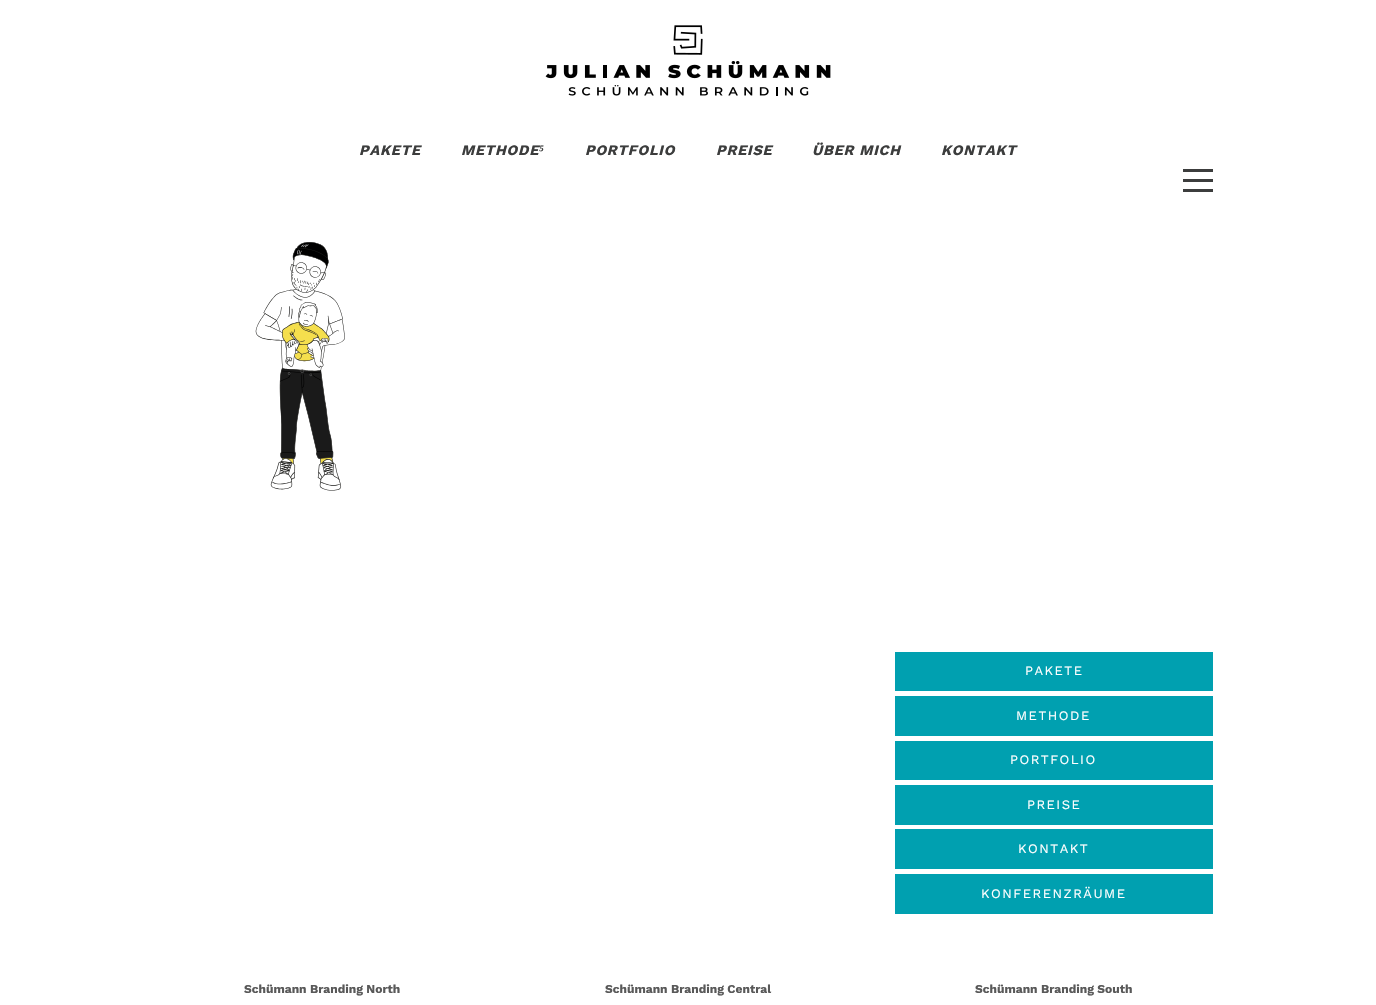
#include "include/core/SkBlurTypes.h"
#include "include/core/SkCanvas.h"
#include "include/core/SkData.h"
#include "include/core/SkFont.h"
#include "include/core/SkFontMgr.h"
#include "include/core/SkImage.h"
#include "include/core/SkMaskFilter.h"
#include "include/core/SkPaint.h"
#include "include/core/SkPathBuilder.h"
#include "include/core/SkTextBlob.h"
#include "include/effects/SkDashPathEffect.h"
#include "include/effects/SkGradientShader.h"
#include "include/utils/SkParsePath.h"

extern sk_sp<SkFontMgr> fontMgr;

static SkFont font(const char* family, int weight, float size, bool italic = false) {
    SkFontStyle style(weight, SkFontStyle::kNormal_Width,
        italic ? SkFontStyle::kItalic_Slant : SkFontStyle::kUpright_Slant);
    SkFont result(fontMgr->matchFamilyStyle(family, style), size);
    result.setSubpixel(true);
    return result;
}

static void drawLabel(SkCanvas* canvas, const char* s, float x, float y, const SkFont& font, SkColor color) {
    SkPaint ink(SkColor4f::FromColor(color));
    ink.setAntiAlias(true);
    canvas->drawString(s, x, y, font, ink);
}

static void drawTracked(SkCanvas* canvas, const char* s, float x, float y, const SkFont& font, const SkPaint& ink, float letter, float word) {
    std::vector<SkGlyphID> glyphs(font.countText(s, strlen(s), SkTextEncoding::kUTF8));
    std::vector<float> xs(glyphs.size());
    font.textToGlyphs(s, strlen(s), SkTextEncoding::kUTF8, glyphs);
    font.getXPos(glyphs, xs, x);
    float extra = 0;
    for (size_t i = 0; i < glyphs.size(); i++) {
        xs[i] += extra;
        extra += letter + word * (glyphs[i] == font.unicharToGlyph(' '));
    }
    canvas->drawTextBlob(SkTextBlob::MakeFromPosHGlyphs(glyphs, xs, y, font), 0, 0, ink);
}

static void fillRect(SkCanvas* canvas, float x, float y, float w, float h, SkColor color) {
    SkPaint ink(SkColor4f::FromColor(color));
    ink.setAntiAlias(true);
    canvas->drawRect(SkRect::MakeXYWH(x, y, w, h), ink);
}

static void drawPhoto(SkCanvas* canvas, const char* path, float x, float y, float w, float h) {
    auto image = SkImages::DeferredFromEncodedData(SkData::MakeFromFileName(path));
    canvas->drawImageRect(image, SkRect::MakeXYWH(x, y, w, h), SkSamplingOptions());
}

void draw(SkCanvas* canvas) {
    SkPaint paint;
    paint.setAntiAlias(true);
    canvas->clear(0xFFFFFFFF);
    drawPhoto(canvas, "assets/img1.png", 545, 25, 286, 71);
    SkFont font1 = font("Work Sans", 700, 14.5f, true);
    paint.setColor(0xFF3C3D3D);
    drawTracked(canvas, "PAKETE", 359, 155, font1, paint, 0.75f, 0);
    drawTracked(canvas, "METHODE", 461, 155, font1, paint, 0.75f, 0);
    SkFont font2 = font("Liberation Serif", 700, 14.5f, true);
    drawTracked(canvas, "⁵", 539, 155, font2, paint, 0.75f, 0);
    drawTracked(canvas, "PORTFOLIO", 585, 155, font1, paint, 0.75f, 0);
    drawTracked(canvas, "PREISE", 716, 155, font1, paint, 0.75f, 0);
    drawTracked(canvas, "ÜBER MICH", 812, 155, font1, paint, 0.75f, 0);
    drawTracked(canvas, "KONTAKT", 941, 155, font1, paint, 0.75f, 0);
    fillRect(canvas, 1183, 179, 30, 3, 0xFF3C3D3D);
    fillRect(canvas, 1183, 169, 30, 3, 0xFF3C3D3D);
    fillRect(canvas, 1183, 189, 30, 3, 0xFF3C3D3D);
    drawPhoto(canvas, "assets/img2.png", 255, 242, 90, 249);
    fillRect(canvas, 895, 652, 318, 39, 0xFF00A0B0);
    SkFont font3 = font("Work Sans", 400, 13);
    paint.setColor(0xFFFFFFFF);
    drawTracked(canvas, "PAKETE", 1025, 675, font3, paint, 1.5f, 0);
    fillRect(canvas, 895, 696, 318, 40, 0xFF00A0B0);
    drawTracked(canvas, "METHODE", 1016, 720, font3, paint, 1.5f, 0);
    fillRect(canvas, 895, 741, 318, 39, 0xFF00A0B0);
    drawTracked(canvas, "PORTFOLIO", 1010, 764, font3, paint, 1.5f, 0);
    fillRect(canvas, 895, 785, 318, 40, 0xFF00A0B0);
    drawTracked(canvas, "PREISE", 1027, 809, font3, paint, 1.5f, 0);
    fillRect(canvas, 895, 829, 318, 40, 0xFF00A0B0);
    drawTracked(canvas, "KONTAKT", 1018, 853, font3, paint, 1.5f, 0);
    fillRect(canvas, 895, 874, 318, 40, 0xFF00A0B0);
    drawTracked(canvas, "KONFERENZRÄUME", 981, 898, font3, paint, 1.5f, 0);
    SkFont font4 = font("Work Sans", 700, 12);
    drawLabel(canvas, "Schümann Branding North", 244, 993, font4, 0xFF595959);
    drawLabel(canvas, "Schümann Branding Central", 605, 993, font4, 0xFF595959);
    drawLabel(canvas, "Schümann Branding South", 975, 993, font4, 0xFF595959);
}
